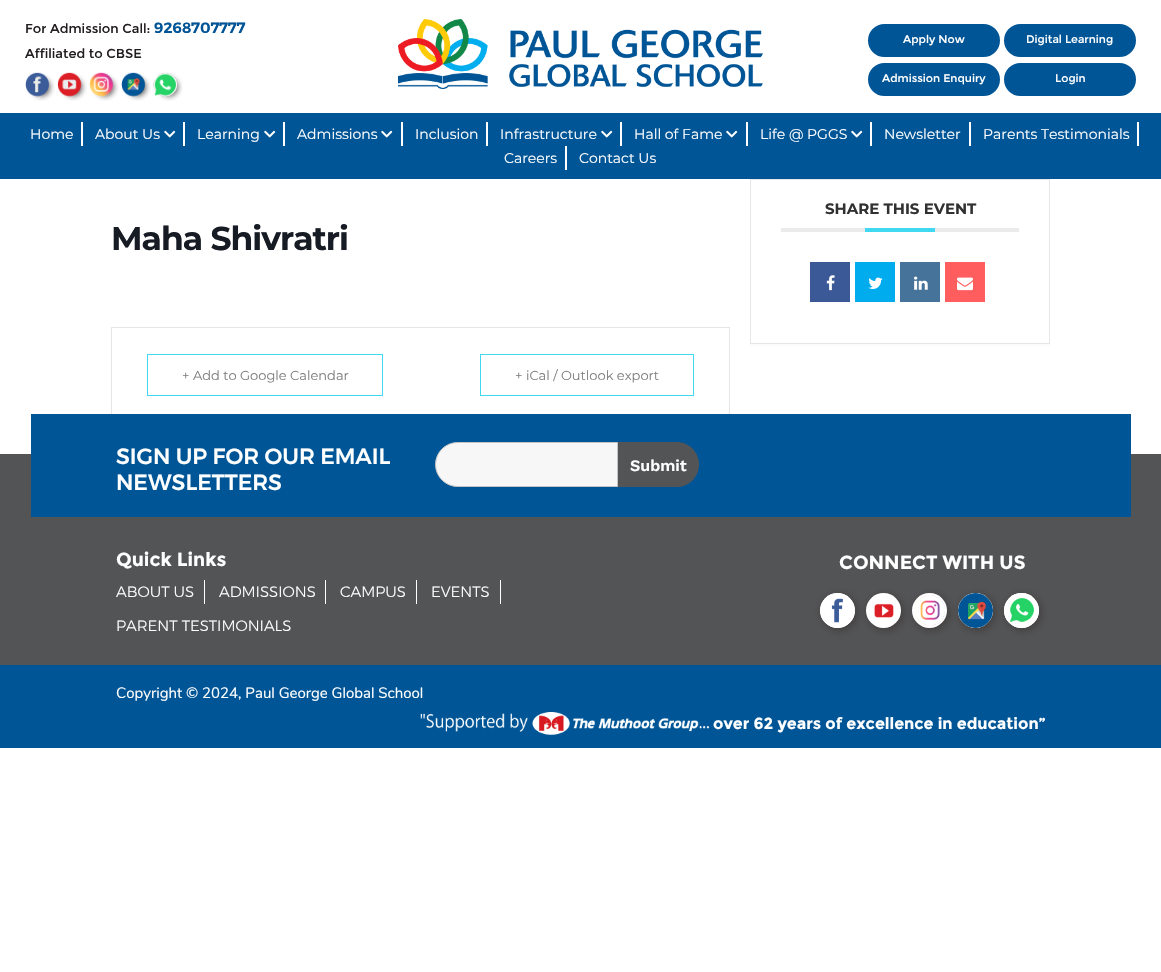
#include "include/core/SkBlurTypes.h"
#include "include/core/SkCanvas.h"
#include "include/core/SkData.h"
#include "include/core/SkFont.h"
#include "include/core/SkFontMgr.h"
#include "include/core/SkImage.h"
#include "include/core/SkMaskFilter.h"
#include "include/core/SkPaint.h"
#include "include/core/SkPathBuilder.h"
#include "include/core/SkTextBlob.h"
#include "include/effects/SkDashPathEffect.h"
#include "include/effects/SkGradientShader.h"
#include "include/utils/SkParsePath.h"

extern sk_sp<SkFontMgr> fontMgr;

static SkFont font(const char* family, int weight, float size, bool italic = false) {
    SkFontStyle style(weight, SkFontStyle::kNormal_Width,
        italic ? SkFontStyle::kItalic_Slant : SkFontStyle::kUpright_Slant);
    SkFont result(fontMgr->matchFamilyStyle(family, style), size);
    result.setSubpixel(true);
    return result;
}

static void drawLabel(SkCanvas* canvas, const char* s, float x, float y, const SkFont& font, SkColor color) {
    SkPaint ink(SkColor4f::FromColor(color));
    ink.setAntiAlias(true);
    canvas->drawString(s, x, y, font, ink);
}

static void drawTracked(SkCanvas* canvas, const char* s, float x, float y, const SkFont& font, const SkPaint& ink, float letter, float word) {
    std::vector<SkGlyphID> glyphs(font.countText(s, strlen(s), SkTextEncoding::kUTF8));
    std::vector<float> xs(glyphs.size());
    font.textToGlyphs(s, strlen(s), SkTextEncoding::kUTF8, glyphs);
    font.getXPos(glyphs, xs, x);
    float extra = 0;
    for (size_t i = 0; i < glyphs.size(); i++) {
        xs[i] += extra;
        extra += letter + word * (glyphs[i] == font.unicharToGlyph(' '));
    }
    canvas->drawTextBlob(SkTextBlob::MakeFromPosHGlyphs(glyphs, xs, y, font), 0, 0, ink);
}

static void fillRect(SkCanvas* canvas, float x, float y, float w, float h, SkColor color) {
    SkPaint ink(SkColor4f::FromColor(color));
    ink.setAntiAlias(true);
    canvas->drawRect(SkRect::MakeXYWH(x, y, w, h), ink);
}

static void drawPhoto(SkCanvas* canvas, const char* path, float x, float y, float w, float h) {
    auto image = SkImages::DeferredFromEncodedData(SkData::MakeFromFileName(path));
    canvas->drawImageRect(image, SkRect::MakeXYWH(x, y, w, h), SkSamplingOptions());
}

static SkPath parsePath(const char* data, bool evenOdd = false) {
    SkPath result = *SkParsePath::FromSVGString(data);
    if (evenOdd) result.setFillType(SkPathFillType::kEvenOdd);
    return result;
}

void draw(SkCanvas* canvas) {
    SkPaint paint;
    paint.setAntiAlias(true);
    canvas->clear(0xFFFFFFFF);
    SkFont font1 = font("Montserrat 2", 400, 13);
    drawLabel(canvas, "For Admission Call:", 25, 33, font1, 0xFF231F20);
    SkFont font2 = font("Montserrat", 600, 15);
    drawLabel(canvas, "9268707777", 154, 33, font2, 0xFF005496);
    drawLabel(canvas, "Affiliated to CBSE", 25, 58, font1, 0xFF231F20);
    drawPhoto(canvas, "assets/img1.png", 25, 72, 30, 29);
    drawPhoto(canvas, "assets/img2.png", 57, 72, 30, 29);
    drawPhoto(canvas, "assets/img3.png", 89, 72, 30, 29);
    drawPhoto(canvas, "assets/img4.png", 121, 72, 30, 29);
    drawPhoto(canvas, "assets/img5.png", 153, 72, 30, 29);
    drawPhoto(canvas, "assets/img6.png", 398, 19, 365, 70);
    paint.setColor(0xFF005596);
    canvas->drawRoundRect(SkRect::MakeXYWH(869, 25, 130, 31), 15.5f, 15.5f, paint);
    paint.setStroke(true);
    paint.setStrokeWidth(2);
    canvas->drawRoundRect(SkRect::MakeXYWH(869, 25, 130, 31), 15.5f, 15.5f, paint);
    SkFont font3 = font("Montserrat 2", 400, 11);
    drawLabel(canvas, "Apply Now", 903, 43, font3, 0xFFFFFFFF);
    paint.setStroke(false);
    canvas->drawRoundRect(SkRect::MakeXYWH(1005, 25, 130, 31), 15.5f, 15.5f, paint);
    paint.setStroke(true);
    canvas->drawRoundRect(SkRect::MakeXYWH(1005, 25, 130, 31), 15.5f, 15.5f, paint);
    drawLabel(canvas, "Digital Learning", 1026, 43, font3, 0xFFFFFFFF);
    paint.setStroke(false);
    canvas->drawRoundRect(SkRect::MakeXYWH(869, 64, 130, 31), 15.5f, 15.5f, paint);
    paint.setStroke(true);
    canvas->drawRoundRect(SkRect::MakeXYWH(869, 64, 130, 31), 15.5f, 15.5f, paint);
    drawLabel(canvas, "Admission Enquiry", 882, 82, font3, 0xFFFFFFFF);
    paint.setStroke(false);
    canvas->drawRoundRect(SkRect::MakeXYWH(1005, 64, 130, 31), 15.5f, 15.5f, paint);
    paint.setStroke(true);
    canvas->drawRoundRect(SkRect::MakeXYWH(1005, 64, 130, 31), 15.5f, 15.5f, paint);
    drawLabel(canvas, "Login", 1055, 82, font3, 0xFFFFFFFF);
    fillRect(canvas, 0, 113, 1161, 66, 0xFF005596);
    fillRect(canvas, 81, 122, 2, 24, 0xFFFFFFFF);
    SkFont font4 = font("Montserrat", 400, 14);
    drawLabel(canvas, "Home", 30, 139, font4, 0xFFFFFFFF);
    fillRect(canvas, 183, 122, 2, 24, 0xFFFFFFFF);
    drawLabel(canvas, "About Us", 95, 139, font4, 0xFFFFFFFF);
    drawPhoto(canvas, "assets/img7.png", 164, 130, 12, 8);
    fillRect(canvas, 283, 122, 2, 24, 0xFFFFFFFF);
    drawLabel(canvas, "Learning", 197, 139, font4, 0xFFFFFFFF);
    drawPhoto(canvas, "assets/img7.png", 264, 130, 12, 8);
    fillRect(canvas, 401, 122, 2, 24, 0xFFFFFFFF);
    drawLabel(canvas, "Admissions", 297, 139, font4, 0xFFFFFFFF);
    drawPhoto(canvas, "assets/img7.png", 381, 130, 12, 8);
    fillRect(canvas, 486, 122, 2, 24, 0xFFFFFFFF);
    drawLabel(canvas, "Inclusion", 415, 139, font4, 0xFFFFFFFF);
    fillRect(canvas, 620, 122, 2, 24, 0xFFFFFFFF);
    drawLabel(canvas, "Infrastructure", 500, 139, font4, 0xFFFFFFFF);
    drawPhoto(canvas, "assets/img7.png", 601, 130, 12, 8);
    fillRect(canvas, 746, 122, 2, 24, 0xFFFFFFFF);
    drawLabel(canvas, "Hall of Fame", 634, 139, font4, 0xFFFFFFFF);
    drawPhoto(canvas, "assets/img7.png", 726, 130, 12, 8);
    fillRect(canvas, 870, 122, 2, 24, 0xFFFFFFFF);
    drawLabel(canvas, "Life @ PGGS", 760, 139, font4, 0xFFFFFFFF);
    drawPhoto(canvas, "assets/img7.png", 851, 130, 12, 8);
    fillRect(canvas, 969, 122, 2, 24, 0xFFFFFFFF);
    drawLabel(canvas, "Newsletter", 884, 139, font4, 0xFFFFFFFF);
    fillRect(canvas, 1137, 122, 2, 24, 0xFFFFFFFF);
    drawLabel(canvas, "Parents Testimonials", 983, 139, font4, 0xFFFFFFFF);
    fillRect(canvas, 565, 146, 2, 24, 0xFFFFFFFF);
    drawLabel(canvas, "Careers", 504, 163, font4, 0xFFFFFFFF);
    drawLabel(canvas, "Contact Us", 579, 163, font4, 0xFFFFFFFF);
    fillRect(canvas, 750, 344, 300, 2, 0xFFFBFBFB);
    paint.setStrokeWidth(1);
    paint.setColor(0xFFE6E6E6);
    canvas->drawRect(SkRect::MakeXYWH(750.5f, 179.5f, 299, 164), paint);
    fillRect(canvas, 781, 228, 238, 4, 0xFFEBEBEB);
    SkFont font5 = font("Montserrat 2", 700, 15);
    drawLabel(canvas, "SHARE THIS EVENT", 825, 214, font5, 0xFF313131);
    fillRect(canvas, 865, 228, 70, 4, 0xFF40D9F1);
    fillRect(canvas, 810, 262, 40, 40, 0xFF3B5996);
    drawPhoto(canvas, "assets/img8.png", 826, 275, 9, 16);
    fillRect(canvas, 855, 262, 40, 40, 0xFF00ACEE);
    drawPhoto(canvas, "assets/img9.png", 868, 277, 15, 12);
    fillRect(canvas, 900, 262, 40, 40, 0xFF457399);
    drawPhoto(canvas, "assets/img10.png", 914, 276, 14, 14);
    fillRect(canvas, 945, 262, 40, 40, 0xFFFF5D5E);
    drawPhoto(canvas, "assets/img11.png", 957, 277, 16, 14);
    SkFont font6 = font("Montserrat 2", 700, 33);
    paint.setStroke(false);
    paint.setColor(0xFF171C24);
    drawTracked(canvas, "Maha Shivratri", 111, 250, font6, paint, -1, 0);
    paint.setStroke(true);
    paint.setColor(0xFFE6E6E6);
    canvas->drawRect(SkRect::MakeXYWH(111.5f, 327.5f, 618, 96), paint);
    paint.setColor(0xFF40D9F1);
    canvas->drawRect(SkRect::MakeXYWH(147.5f, 354.5f, 235, 41), paint);
    SkFont font7 = font("Montserrat", 400, 13);
    drawLabel(canvas, "+ Add to Google Calendar", 182, 380, font7, 0xFF808080);
    canvas->drawRect(SkRect::MakeXYWH(480.5f, 354.5f, 213, 41), paint);
    drawLabel(canvas, "+ iCal / Outlook export", 515, 380, font7, 0xFF808080);
    fillRect(canvas, 0, 454, 1161, 211, 0xFF535456);
    fillRect(canvas, 31, 414, 1100, 103, 0xFF005596);
    SkFont font8 = font("Montserrat", 500, 22);
    drawLabel(canvas, "SIGN UP FOR OUR EMAIL", 116, 464, font8, 0xFFFFFFFF);
    drawLabel(canvas, "NEWSLETTERS", 116, 490, font8, 0xFFFFFFFF);
    paint.setStroke(false);
    paint.setColor(0xFFF7F7F7);
    canvas->drawPath(parsePath("M457.5 442.5H617.5V486.5H457.5C445.5 486.5 435.5 476.5 435.5 464.5C435.5 452.5 445.5 442.5 457.5 442.5Z"), paint);
    paint.setStroke(true);
    paint.setColor(0xFFC4C4C4);
    canvas->drawPath(parsePath("M457.5 442.5H617.5V486.5H457.5C445.5 486.5 435.5 476.5 435.5 464.5C435.5 452.5 445.5 442.5 457.5 442.5Z"), paint);
    paint.setStroke(false);
    paint.setColor(0xFF535456);
    canvas->drawPath(parsePath("M618 442H676.5C689 442 699 452 699 464.5C699 477 689 487 676.5 487H618Z"), paint);
    SkFont font9 = font("Work Sans", 600, 16);
    drawLabel(canvas, "Submit", 630, 471, font9, 0xFFFFFFFF);
    SkFont font10 = font("Montserrat", 700, 19);
    drawLabel(canvas, "Quick Links", 116, 566, font10, 0xFFFFFFFF);
    fillRect(canvas, 204, 580, 1, 24, 0xFFFFFFFF);
    SkFont font11 = font("Montserrat", 300, 15);
    drawLabel(canvas, "ABOUT US", 116, 597, font11, 0xFFFFFFFF);
    fillRect(canvas, 325, 580, 1, 24, 0xFFFFFFFF);
    drawLabel(canvas, "ADMISSIONS", 219, 597, font11, 0xFFFFFFFF);
    fillRect(canvas, 416, 580, 1, 24, 0xFFFFFFFF);
    drawLabel(canvas, "CAMPUS", 340, 597, font11, 0xFFFFFFFF);
    fillRect(canvas, 500, 580, 1, 24, 0xFFFFFFFF);
    drawLabel(canvas, "EVENTS", 431, 597, font11, 0xFFFFFFFF);
    drawLabel(canvas, "PARENT TESTIMONIALS", 116, 631, font11, 0xFFFFFFFF);
    drawLabel(canvas, "CONNECT WITH US", 839, 569, font10, 0xFFFFFFFF);
    paint.setColor(0xFF3F3A3A);
    paint.setMaskFilter(SkMaskFilter::MakeBlur(kNormal_SkBlurStyle, 5));
    canvas->drawRoundRect(SkRect::MakeXYWH(822, 595, 35, 35), 17.5f, 17.5f, paint);
    paint.setMaskFilter(nullptr);
    paint.setColor(0xFFFFFFFF);
    canvas->drawCircle(837.5f, 610.5f, 17.5f, paint);
    drawPhoto(canvas, "assets/img12.png", 820, 593, 35, 35);
    paint.setColor(0xFF3F3A3A);
    paint.setMaskFilter(SkMaskFilter::MakeBlur(kNormal_SkBlurStyle, 5));
    canvas->drawRoundRect(SkRect::MakeXYWH(868, 595, 35, 35), 17.5f, 17.5f, paint);
    paint.setMaskFilter(nullptr);
    paint.setColor(0xFFFFFFFF);
    canvas->drawCircle(883.5f, 610.5f, 17.5f, paint);
    drawPhoto(canvas, "assets/img13.png", 874, 603, 20, 15);
    paint.setColor(0xFF3F3A3A);
    paint.setMaskFilter(SkMaskFilter::MakeBlur(kNormal_SkBlurStyle, 5));
    canvas->drawRoundRect(SkRect::MakeXYWH(914, 595, 35, 35), 17.5f, 17.5f, paint);
    paint.setMaskFilter(nullptr);
    paint.setColor(0xFFFFFFFF);
    canvas->drawCircle(929.5f, 610.5f, 17.5f, paint);
    drawPhoto(canvas, "assets/img14.png", 914, 595, 31, 31);
    paint.setColor(0xFF3F3A3A);
    paint.setMaskFilter(SkMaskFilter::MakeBlur(kNormal_SkBlurStyle, 5));
    canvas->drawRoundRect(SkRect::MakeXYWH(960, 595, 35, 35), 17.5f, 17.5f, paint);
    paint.setMaskFilter(nullptr);
    paint.setColor(0xFFFFFFFF);
    canvas->drawCircle(975.5f, 610.5f, 17.5f, paint);
    drawPhoto(canvas, "assets/img15.png", 958, 593, 35, 35);
    paint.setColor(0xFF3F3A3A);
    paint.setMaskFilter(SkMaskFilter::MakeBlur(kNormal_SkBlurStyle, 5));
    canvas->drawRoundRect(SkRect::MakeXYWH(1006, 595, 35, 35), 17.5f, 17.5f, paint);
    paint.setMaskFilter(nullptr);
    paint.setColor(0xFFFFFFFF);
    canvas->drawCircle(1021.5f, 610.5f, 17.5f, paint);
    drawPhoto(canvas, "assets/img16.png", 1004, 593, 35, 35);
    fillRect(canvas, 0, 665, 1161, 83, 0xFF005596);
    SkFont font12 = font("Nunito", 400, 15);
    drawLabel(canvas, "Copyright © 2024, Paul George Global School", 116, 698, font12, 0xFFFFFFFF);
    drawPhoto(canvas, "assets/img17.png", 420, 712, 289, 23);
    SkFont font13 = font("Montserrat", 700, 16);
    drawLabel(canvas, "over 62 years of excellence in education”", 713, 729, font13, 0xFFFFFFFF);
}
